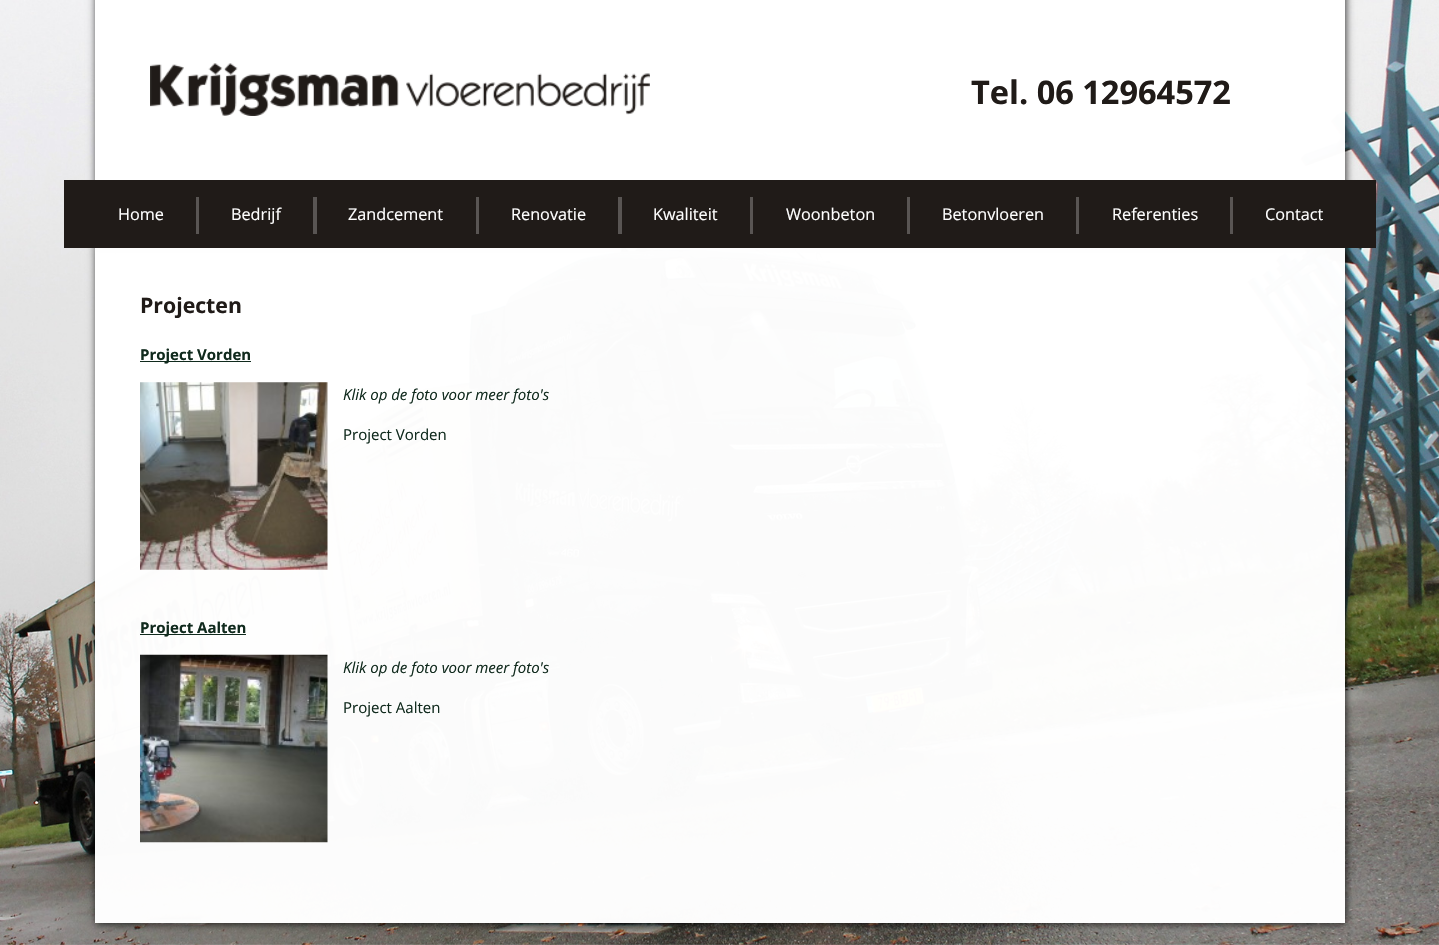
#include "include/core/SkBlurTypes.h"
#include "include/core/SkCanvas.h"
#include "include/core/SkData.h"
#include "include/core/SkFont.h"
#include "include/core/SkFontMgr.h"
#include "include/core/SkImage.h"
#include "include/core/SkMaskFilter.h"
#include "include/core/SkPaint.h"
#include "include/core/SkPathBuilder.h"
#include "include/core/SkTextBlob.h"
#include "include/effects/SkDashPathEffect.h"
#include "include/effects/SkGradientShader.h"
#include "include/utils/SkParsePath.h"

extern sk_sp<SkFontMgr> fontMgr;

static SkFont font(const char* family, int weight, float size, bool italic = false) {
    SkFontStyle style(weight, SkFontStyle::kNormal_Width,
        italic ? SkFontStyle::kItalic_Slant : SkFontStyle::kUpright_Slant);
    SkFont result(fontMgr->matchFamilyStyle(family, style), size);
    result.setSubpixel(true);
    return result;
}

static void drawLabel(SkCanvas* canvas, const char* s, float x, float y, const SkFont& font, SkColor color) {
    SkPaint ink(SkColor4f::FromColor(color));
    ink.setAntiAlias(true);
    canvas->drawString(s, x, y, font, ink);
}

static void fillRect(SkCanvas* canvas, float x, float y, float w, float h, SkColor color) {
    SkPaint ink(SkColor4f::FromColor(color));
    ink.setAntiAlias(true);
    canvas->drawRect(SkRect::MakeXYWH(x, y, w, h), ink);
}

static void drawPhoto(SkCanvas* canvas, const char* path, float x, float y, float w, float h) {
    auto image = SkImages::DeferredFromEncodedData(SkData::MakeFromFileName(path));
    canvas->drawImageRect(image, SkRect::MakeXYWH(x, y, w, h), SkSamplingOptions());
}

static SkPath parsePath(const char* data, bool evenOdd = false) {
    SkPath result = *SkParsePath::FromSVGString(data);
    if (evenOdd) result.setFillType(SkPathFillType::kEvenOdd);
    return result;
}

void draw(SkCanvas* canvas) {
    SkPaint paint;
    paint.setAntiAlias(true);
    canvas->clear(0xFFFFFFFF);
    drawPhoto(canvas, "assets/img1.png", 0, 0, 1439, 945);
    canvas->save();
    canvas->clipPath(parsePath("M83 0H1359V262H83ZM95-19H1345V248H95Z", true), true);
    paint.setColor(0xC7000000);
    paint.setMaskFilter(SkMaskFilter::MakeBlur(kNormal_SkBlurStyle, 4));
    canvas->drawRect(SkRect::MakeXYWH(96, -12, 1250, 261), paint);
    paint.setMaskFilter(nullptr);
    canvas->restore();
    fillRect(canvas, 95, 0, 1250, 180, 0xFAFFFFFF);
    drawPhoto(canvas, "assets/img2.png", 150, 63, 500, 53);
    SkFont font1 = font("Open Sans", 700, 32.5f);
    drawLabel(canvas, "Tel. 06 12964572", 971, 104, font1, 0xFF201B18);
    canvas->save();
    canvas->clipPath(parsePath("M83 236H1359V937H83ZM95 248H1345V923H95Z", true), true);
    paint.setMaskFilter(SkMaskFilter::MakeBlur(kNormal_SkBlurStyle, 4));
    canvas->drawRect(SkRect::MakeXYWH(96, 249, 1250, 675), paint);
    paint.setMaskFilter(nullptr);
    canvas->restore();
    fillRect(canvas, 64, 180, 1312, 68, 0xFF201B18);
    SkFont font2 = font("Open Sans", 400, 16.25f);
    drawLabel(canvas, "Home", 118, 220, font2, 0xFFFFFFFF);
    fillRect(canvas, 196, 197, 3, 37, 0xFF595553);
    drawLabel(canvas, "Bedrijf", 231, 220, font2, 0xFFFFFFFF);
    fillRect(canvas, 313, 197, 4, 37, 0xFF595553);
    drawLabel(canvas, "Zandcement", 348, 220, font2, 0xFFFFFFFF);
    fillRect(canvas, 476, 197, 3, 37, 0xFF595553);
    drawLabel(canvas, "Renovatie", 511, 220, font2, 0xFFFFFFFF);
    fillRect(canvas, 618, 197, 4, 37, 0xFF595553);
    drawLabel(canvas, "Kwaliteit", 653, 220, font2, 0xFFFFFFFF);
    fillRect(canvas, 750, 197, 3, 37, 0xFF595553);
    drawLabel(canvas, "Woonbeton", 786, 220, font2, 0xFFFFFFFF);
    fillRect(canvas, 907, 197, 3, 37, 0xFF595553);
    drawLabel(canvas, "Betonvloeren", 942, 220, font2, 0xFFFFFFFF);
    fillRect(canvas, 1076, 197, 3, 37, 0xFF595553);
    drawLabel(canvas, "Referenties", 1112, 220, font2, 0xFFFFFFFF);
    fillRect(canvas, 1230, 197, 3, 37, 0xFF595553);
    drawLabel(canvas, "Contact", 1265, 220, font2, 0xFFFFFFFF);
    fillRect(canvas, 95, 248, 1250, 675, 0xFAFFFFFF);
    SkFont font3 = font("Open Sans", 700, 21.25f);
    drawLabel(canvas, "Projecten", 140, 313, font3, 0xFF201B18);
    fillRect(canvas, 140, 361, 111, 1, 0xFF102A1D);
    SkFont font4 = font("Open Sans", 700, 15);
    drawLabel(canvas, "Project Vorden", 140, 360, font4, 0xFF102A1D);
    drawPhoto(canvas, "assets/img3.png", 140, 382, 188, 188);
    SkFont font5 = font("Open Sans", 400, 15, true);
    drawLabel(canvas, "Klik op de foto voor meer foto's", 343, 400, font5, 0xFF102A1D);
    SkFont font6 = font("Open Sans", 400, 15);
    drawLabel(canvas, "Project Vorden", 343, 440, font6, 0xFF102A1D);
    fillRect(canvas, 140, 634, 106, 1, 0xFF102A1D);
    drawLabel(canvas, "Project Aalten", 140, 633, font4, 0xFF102A1D);
    drawPhoto(canvas, "assets/img4.png", 140, 654, 188, 189);
    drawLabel(canvas, "Klik op de foto voor meer foto's", 343, 673, font5, 0xFF102A1D);
    drawLabel(canvas, "Project Aalten", 343, 713, font6, 0xFF102A1D);
}
